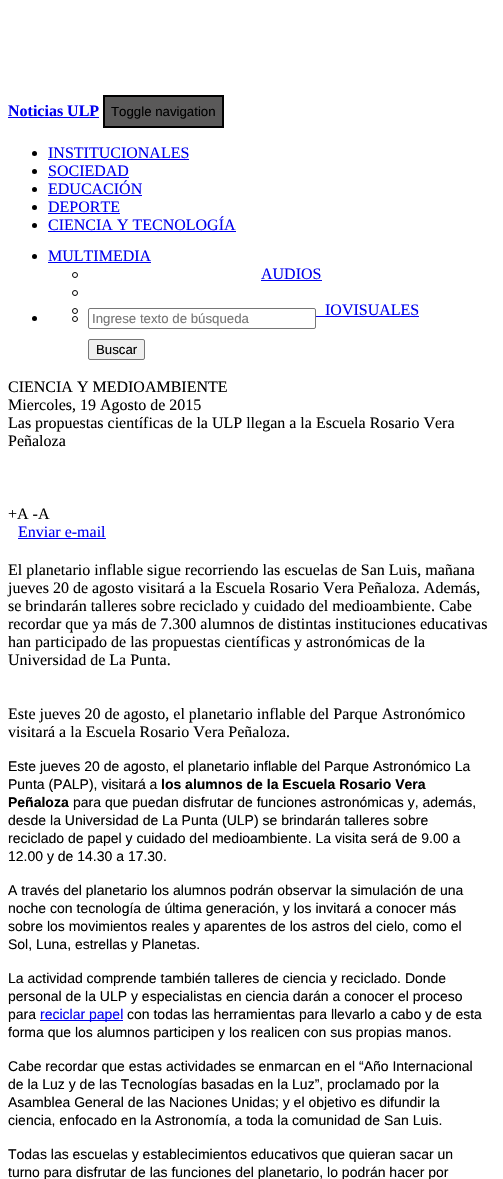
#include "include/core/SkBlurTypes.h"
#include "include/core/SkCanvas.h"
#include "include/core/SkData.h"
#include "include/core/SkFont.h"
#include "include/core/SkFontMgr.h"
#include "include/core/SkImage.h"
#include "include/core/SkMaskFilter.h"
#include "include/core/SkPaint.h"
#include "include/core/SkPathBuilder.h"
#include "include/core/SkTextBlob.h"
#include "include/effects/SkDashPathEffect.h"
#include "include/effects/SkGradientShader.h"
#include "include/utils/SkParsePath.h"

extern sk_sp<SkFontMgr> fontMgr;

static SkFont font(const char* family, int weight, float size, bool italic = false) {
    SkFontStyle style(weight, SkFontStyle::kNormal_Width,
        italic ? SkFontStyle::kItalic_Slant : SkFontStyle::kUpright_Slant);
    SkFont result(fontMgr->matchFamilyStyle(family, style), size);
    result.setSubpixel(true);
    return result;
}

static void drawLabel(SkCanvas* canvas, const char* s, float x, float y, const SkFont& font, SkColor color) {
    SkPaint ink(SkColor4f::FromColor(color));
    ink.setAntiAlias(true);
    canvas->drawString(s, x, y, font, ink);
}

static void fillRect(SkCanvas* canvas, float x, float y, float w, float h, SkColor color) {
    SkPaint ink(SkColor4f::FromColor(color));
    ink.setAntiAlias(true);
    canvas->drawRect(SkRect::MakeXYWH(x, y, w, h), ink);
}

void draw(SkCanvas* canvas) {
    SkPaint paint;
    paint.setAntiAlias(true);
    canvas->clear(0xFFFFFFFF);
    SkFont font1 = font("Liberation Serif", 700, 16);
    drawLabel(canvas, "Noticias ULP", 8, 116, font1, 0xFF0000EE);
    fillRect(canvas, 8, 117, 91, 1, 0xFF0000EE);
    paint.setColor(0xFF5A5959);
    canvas->drawRect(SkRect::MakeXYWH(104, 96, 119, 31), paint);
    paint.setStroke(true);
    paint.setStrokeWidth(2);
    paint.setColor(0xFF000000);
    canvas->drawRect(SkRect::MakeXYWH(104, 96, 119, 31), paint);
    SkFont font2 = font("Liberation Sans", 400, 13.25f);
    drawLabel(canvas, "Toggle navigation", 111, 116, font2, 0xFF000000);
    paint.setStroke(false);
    canvas->drawCircle(34.5f, 153.5f, 2.5f, paint);
    SkFont font3 = font("Liberation Serif", 400, 16);
    drawLabel(canvas, "INSTITUCIONALES", 48, 158, font3, 0xFF0000EE);
    fillRect(canvas, 48, 159, 141, 1, 0xFF0000EE);
    canvas->drawCircle(34.5f, 171.5f, 2.5f, paint);
    drawLabel(canvas, "SOCIEDAD", 48, 176, font3, 0xFF0000EE);
    fillRect(canvas, 48, 177, 81, 1, 0xFF0000EE);
    canvas->drawCircle(34.5f, 189.5f, 2.5f, paint);
    drawLabel(canvas, "EDUCACIÓN", 48, 194, font3, 0xFF0000EE);
    fillRect(canvas, 48, 195, 94, 1, 0xFF0000EE);
    canvas->drawCircle(34.5f, 207.5f, 2.5f, paint);
    drawLabel(canvas, "DEPORTE", 48, 212, font3, 0xFF0000EE);
    fillRect(canvas, 48, 213, 72, 1, 0xFF0000EE);
    canvas->drawCircle(34.5f, 225.5f, 2.5f, paint);
    drawLabel(canvas, "CIENCIA Y TECNOLOGÍA", 48, 230, font3, 0xFF0000EE);
    fillRect(canvas, 48, 231, 188, 1, 0xFF0000EE);
    canvas->drawCircle(34.5f, 256.5f, 2.5f, paint);
    drawLabel(canvas, "MULTIMEDIA", 48, 261, font3, 0xFF0000EE);
    fillRect(canvas, 48, 262, 103, 1, 0xFF0000EE);
    paint.setStroke(true);
    paint.setStrokeWidth(1);
    canvas->drawCircle(75, 275, 2.5f, paint);
    drawLabel(canvas, "AUDIOS", 261, 279, font3, 0xFF0000EE);
    fillRect(canvas, 261, 280, 61, 1, 0xFF0000EE);
    canvas->drawCircle(75, 293, 2.5f, paint);
    canvas->drawCircle(75, 311, 2.5f, paint);
    drawLabel(canvas, "IOVISUALES", 325, 315, font3, 0xFF0000EE);
    fillRect(canvas, 316, 316, 103, 1, 0xFF0000EE);
    paint.setStroke(false);
    canvas->drawCircle(34.5f, 318.5f, 2.5f, paint);
    paint.setStroke(true);
    canvas->drawCircle(75, 319, 2.5f, paint);
    paint.setColor(0xFF767676);
    canvas->drawRoundRect(SkRect::MakeXYWH(88.5f, 308.5f, 227, 20), 1.5f, 1.5f, paint);
    drawLabel(canvas, "Ingrese texto de búsqueda", 92, 323, font2, 0xFF757575);
    paint.setStroke(false);
    paint.setColor(0xFFEFEFEF);
    canvas->drawRoundRect(SkRect::MakeXYWH(88.5f, 339.5f, 56, 20), 1.5f, 1.5f, paint);
    paint.setStroke(true);
    paint.setColor(0xFF767676);
    canvas->drawRoundRect(SkRect::MakeXYWH(88.5f, 339.5f, 56, 20), 1.5f, 1.5f, paint);
    drawLabel(canvas, "Buscar", 96, 354, font2, 0xFF000000);
    drawLabel(canvas, "CIENCIA Y MEDIOAMBIENTE", 8, 392, font3, 0xFF000000);
    drawLabel(canvas, "Miercoles, 19 Agosto de 2015", 8, 410, font3, 0xFF000000);
    drawLabel(canvas, "Las propuestas científicas de la ULP llegan a la Escuela Rosario Vera", 8, 428, font3, 0xFF000000);
    drawLabel(canvas, "Peñaloza", 8, 446, font3, 0xFF000000);
    drawLabel(canvas, "+A -A", 8, 519, font3, 0xFF000000);
    drawLabel(canvas, "Enviar e-mail", 18, 537, font3, 0xFF0000EE);
    fillRect(canvas, 18, 538, 88, 1, 0xFF0000EE);
    drawLabel(canvas, "El planetario inflable sigue recorriendo las escuelas de San Luis, mañana", 8, 575, font3, 0xFF000000);
    drawLabel(canvas, "jueves 20 de agosto visitará a la Escuela Rosario Vera Peñaloza. Además,", 8, 593, font3, 0xFF000000);
    drawLabel(canvas, "se brindarán talleres sobre reciclado y cuidado del medioambiente. Cabe", 8, 611, font3, 0xFF000000);
    drawLabel(canvas, "recordar que ya más de 7.300 alumnos de distintas instituciones educativas", 8, 629, font3, 0xFF000000);
    drawLabel(canvas, "han participado de las propuestas científicas y astronómicas de la", 8, 647, font3, 0xFF000000);
    drawLabel(canvas, "Universidad de La Punta.", 8, 665, font3, 0xFF000000);
    drawLabel(canvas, "Este jueves 20 de agosto, el planetario inflable del Parque Astronómico", 8, 719, font3, 0xFF000000);
    drawLabel(canvas, "visitará a la Escuela Rosario Vera Peñaloza.", 8, 737, font3, 0xFF000000);
    SkFont font4 = font("Liberation Sans", 400, 14);
    drawLabel(canvas, "Este jueves 20 de agosto, el planetario inflable del Parque Astronómico La", 8, 771, font4, 0xFF000000);
    drawLabel(canvas, "Punta (PALP), visitará a", 8, 789, font4, 0xFF000000);
    SkFont font5 = font("Liberation Sans", 700, 14);
    drawLabel(canvas, "los alumnos de la Escuela Rosario Vera", 161, 789, font5, 0xFF000000);
    drawLabel(canvas, "Peñaloza", 8, 807, font5, 0xFF000000);
    drawLabel(canvas, "para que puedan disfrutar de funciones astronómicas y, además,", 73, 807, font4, 0xFF000000);
    drawLabel(canvas, "desde la Universidad de La Punta (ULP) se brindarán talleres sobre", 8, 825, font4, 0xFF000000);
    drawLabel(canvas, "reciclado de papel y cuidado del medioambiente. La visita será de 9.00 a", 8, 843, font4, 0xFF000000);
    drawLabel(canvas, "12.00 y de 14.30 a 17.30.", 8, 861, font4, 0xFF000000);
    drawLabel(canvas, "A través del planetario los alumnos podrán observar la simulación de una", 8, 895, font4, 0xFF000000);
    drawLabel(canvas, "noche con tecnología de última generación, y los invitará a conocer más", 8, 913, font4, 0xFF000000);
    drawLabel(canvas, "sobre los movimientos reales y aparentes de los astros del cielo, como el", 8, 931, font4, 0xFF000000);
    drawLabel(canvas, "Sol, Luna, estrellas y Planetas.", 8, 949, font4, 0xFF000000);
    drawLabel(canvas, "La actividad comprende también talleres de ciencia y reciclado. Donde", 8, 983, font4, 0xFF000000);
    drawLabel(canvas, "personal de la ULP y especialistas en ciencia darán a conocer el proceso", 8, 1001, font4, 0xFF000000);
    drawLabel(canvas, "para", 8, 1019, font4, 0xFF000000);
    fillRect(canvas, 40, 1020, 83, 1, 0xFF0000EE);
    drawLabel(canvas, "reciclar papel", 40, 1019, font4, 0xFF0000EE);
    drawLabel(canvas, "con todas las herramientas para llevarlo a cabo y de esta", 127, 1019, font4, 0xFF000000);
    drawLabel(canvas, "forma que los alumnos participen y los realicen con sus propias manos.", 8, 1037, font4, 0xFF000000);
    drawLabel(canvas, "Cabe recordar que estas actividades se enmarcan en el “Año Internacional", 8, 1071, font4, 0xFF000000);
    drawLabel(canvas, "de la Luz y de las Tecnologías basadas en la Luz”, proclamado por la", 8, 1089, font4, 0xFF000000);
    drawLabel(canvas, "Asamblea General de las Naciones Unidas; y el objetivo es difundir la", 8, 1107, font4, 0xFF000000);
    drawLabel(canvas, "ciencia, enfocado en la Astronomía, a toda la comunidad de San Luis.", 8, 1125, font4, 0xFF000000);
    drawLabel(canvas, "Todas las escuelas y establecimientos educativos que quieran sacar un", 8, 1159, font4, 0xFF000000);
    drawLabel(canvas, "turno para disfrutar de las funciones del planetario, lo podrán hacer por", 8, 1177, font4, 0xFF000000);
}
